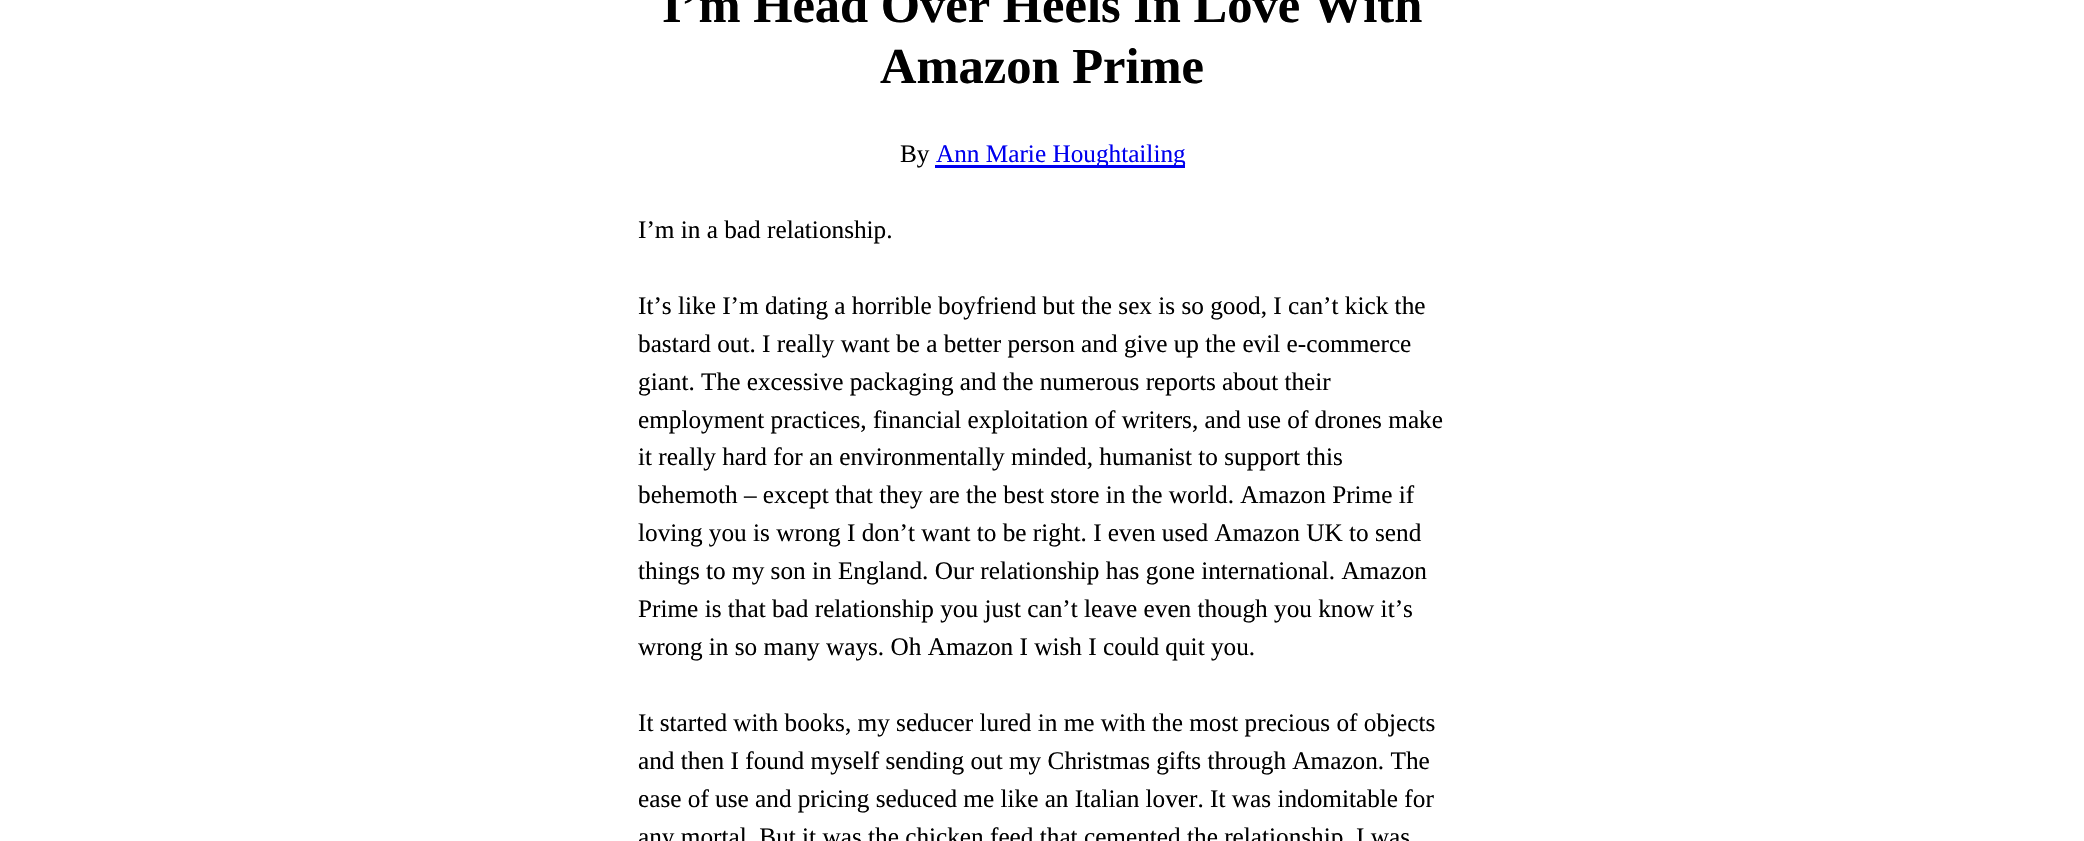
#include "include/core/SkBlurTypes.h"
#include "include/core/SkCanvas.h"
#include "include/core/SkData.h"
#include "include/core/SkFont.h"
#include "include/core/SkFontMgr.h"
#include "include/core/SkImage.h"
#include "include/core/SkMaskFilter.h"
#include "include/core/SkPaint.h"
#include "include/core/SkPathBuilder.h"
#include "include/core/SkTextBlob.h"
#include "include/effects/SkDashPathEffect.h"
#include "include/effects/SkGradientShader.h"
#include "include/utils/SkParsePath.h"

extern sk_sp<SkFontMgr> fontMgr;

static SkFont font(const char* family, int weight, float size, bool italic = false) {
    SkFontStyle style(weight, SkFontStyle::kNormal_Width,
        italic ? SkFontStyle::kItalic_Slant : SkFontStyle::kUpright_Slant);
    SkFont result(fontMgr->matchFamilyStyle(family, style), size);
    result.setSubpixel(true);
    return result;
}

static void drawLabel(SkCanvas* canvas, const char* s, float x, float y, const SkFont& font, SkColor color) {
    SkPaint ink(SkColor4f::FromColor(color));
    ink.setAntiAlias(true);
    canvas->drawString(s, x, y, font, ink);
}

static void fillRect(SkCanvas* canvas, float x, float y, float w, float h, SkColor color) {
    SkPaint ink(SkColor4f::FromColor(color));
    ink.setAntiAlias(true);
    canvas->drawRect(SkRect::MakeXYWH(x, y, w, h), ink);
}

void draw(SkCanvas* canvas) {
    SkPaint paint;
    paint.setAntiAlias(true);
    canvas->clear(0xFFFFFFFF);
    SkFont font1 = font("Liberation Serif", 700, 50.5f);
    drawLabel(canvas, "I’m Head Over Heels In Love With", 662, 22, font1, 0xFF000000);
    drawLabel(canvas, "Amazon Prime", 880, 83, font1, 0xFF000000);
    SkFont font2 = font("Liberation Serif", 400, 25.25f);
    drawLabel(canvas, "By", 900, 162, font2, 0xFF000000);
    fillRect(canvas, 935, 165, 250, 3, 0xFF0000EE);
    drawLabel(canvas, "Ann Marie Houghtailing", 936, 162, font2, 0xFF0000EE);
    drawLabel(canvas, "I’m in a bad relationship.", 638, 238, font2, 0xFF000000);
    drawLabel(canvas, "It’s like I’m dating a horrible boyfriend but the sex is so good, I can’t kick the", 638, 314, font2, 0xFF000000);
    drawLabel(canvas, "bastard out. I really want be a better person and give up the evil e-commerce", 638, 352, font2, 0xFF000000);
    drawLabel(canvas, "giant. The excessive packaging and the numerous reports about their", 638, 390, font2, 0xFF000000);
    drawLabel(canvas, "employment practices, financial exploitation of writers, and use of drones make", 638, 428, font2, 0xFF000000);
    drawLabel(canvas, "it really hard for an environmentally minded, humanist to support this", 638, 465, font2, 0xFF000000);
    drawLabel(canvas, "behemoth – except that they are the best store in the world. Amazon Prime if", 638, 503, font2, 0xFF000000);
    drawLabel(canvas, "loving you is wrong I don’t want to be right. I even used Amazon UK to send", 638, 541, font2, 0xFF000000);
    drawLabel(canvas, "things to my son in England. Our relationship has gone international. Amazon", 638, 579, font2, 0xFF000000);
    drawLabel(canvas, "Prime is that bad relationship you just can’t leave even though you know it’s", 638, 617, font2, 0xFF000000);
    drawLabel(canvas, "wrong in so many ways. Oh Amazon I wish I could quit you.", 638, 655, font2, 0xFF000000);
    drawLabel(canvas, "It started with books, my seducer lured in me with the most precious of objects", 638, 731, font2, 0xFF000000);
    drawLabel(canvas, "and then I found myself sending out my Christmas gifts through Amazon. The", 638, 769, font2, 0xFF000000);
    drawLabel(canvas, "ease of use and pricing seduced me like an Italian lover. It was indomitable for", 638, 807, font2, 0xFF000000);
    drawLabel(canvas, "any mortal. But it was the chicken feed that cemented the relationship. I was", 638, 845, font2, 0xFF000000);
}
